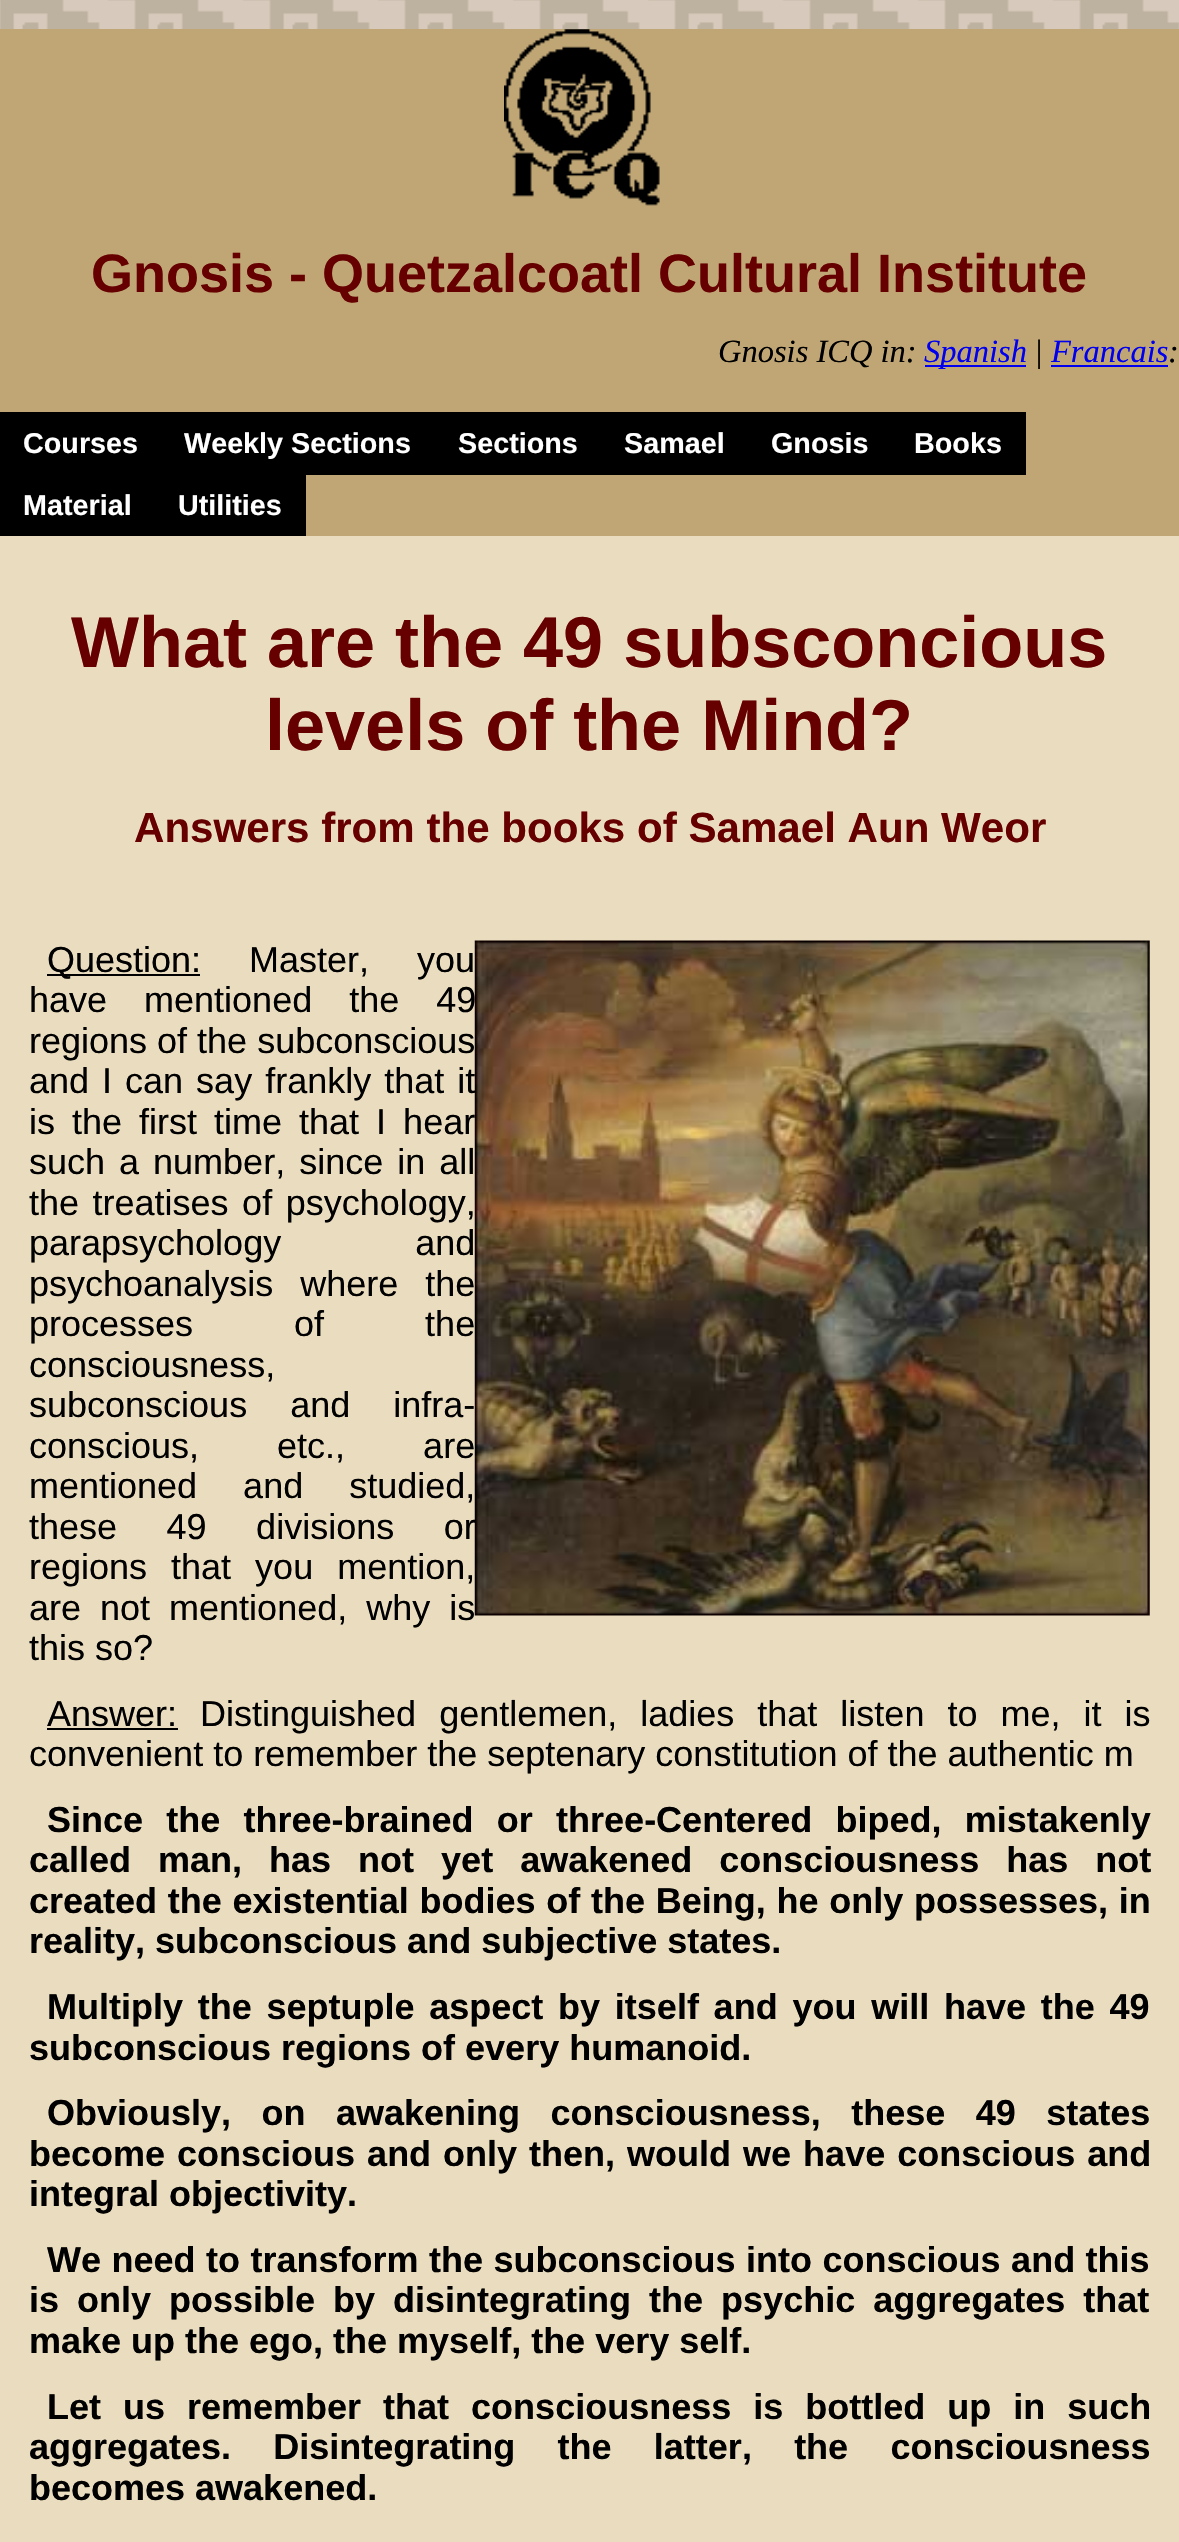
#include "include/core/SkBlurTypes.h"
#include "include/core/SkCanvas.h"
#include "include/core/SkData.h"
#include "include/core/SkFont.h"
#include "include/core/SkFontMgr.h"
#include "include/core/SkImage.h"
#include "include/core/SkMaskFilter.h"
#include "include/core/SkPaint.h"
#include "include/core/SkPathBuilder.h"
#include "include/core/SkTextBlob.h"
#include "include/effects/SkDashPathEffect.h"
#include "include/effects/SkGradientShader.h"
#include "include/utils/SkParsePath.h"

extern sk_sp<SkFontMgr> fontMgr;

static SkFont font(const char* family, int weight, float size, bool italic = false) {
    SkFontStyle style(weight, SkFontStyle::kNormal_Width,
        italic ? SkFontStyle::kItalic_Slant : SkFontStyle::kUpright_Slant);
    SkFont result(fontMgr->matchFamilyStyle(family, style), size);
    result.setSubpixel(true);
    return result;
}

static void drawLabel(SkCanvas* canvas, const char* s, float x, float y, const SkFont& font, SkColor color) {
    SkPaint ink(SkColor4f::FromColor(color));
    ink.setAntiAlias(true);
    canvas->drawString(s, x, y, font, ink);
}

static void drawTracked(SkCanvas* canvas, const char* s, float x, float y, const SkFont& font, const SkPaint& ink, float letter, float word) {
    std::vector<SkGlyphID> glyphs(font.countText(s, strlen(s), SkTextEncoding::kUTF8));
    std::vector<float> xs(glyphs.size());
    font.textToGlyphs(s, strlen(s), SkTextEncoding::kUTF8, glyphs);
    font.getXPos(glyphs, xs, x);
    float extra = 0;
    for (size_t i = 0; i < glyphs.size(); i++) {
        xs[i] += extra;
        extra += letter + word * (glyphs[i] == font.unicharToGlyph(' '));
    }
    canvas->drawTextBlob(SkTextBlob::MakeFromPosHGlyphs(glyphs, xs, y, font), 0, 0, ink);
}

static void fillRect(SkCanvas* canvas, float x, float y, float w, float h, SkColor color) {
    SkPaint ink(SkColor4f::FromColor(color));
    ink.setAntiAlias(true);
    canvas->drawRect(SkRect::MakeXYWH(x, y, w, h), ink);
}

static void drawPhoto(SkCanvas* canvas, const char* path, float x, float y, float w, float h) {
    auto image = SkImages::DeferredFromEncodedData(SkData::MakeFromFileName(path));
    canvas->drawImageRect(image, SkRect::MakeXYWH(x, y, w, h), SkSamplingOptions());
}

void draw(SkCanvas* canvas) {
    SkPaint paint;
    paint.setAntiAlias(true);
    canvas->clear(0xFFD7C9BB);
    drawPhoto(canvas, "assets/img1.png", 0, 0, 1179, 29);
    fillRect(canvas, 0, 29, 1179, 507, 0xFFC0A674);
    drawPhoto(canvas, "assets/img2.png", 504, 29, 156, 177);
    SkFont font1 = font("Liberation Sans", 700, 54);
    drawLabel(canvas, "Gnosis - Quetzalcoatl Cultural Institute", 91, 292, font1, 0xFF660000);
    SkFont font2 = font("Liberation Serif", 400, 32.5f, true);
    drawLabel(canvas, "Gnosis ICQ in:", 718, 362, font2, 0xFF000000);
    fillRect(canvas, 925, 365, 101, 2, 0xFF0000EE);
    drawLabel(canvas, "Spanish", 924, 362, font2, 0xFF0000EE);
    drawLabel(canvas, "|", 1034, 362, font2, 0xFF000000);
    drawLabel(canvas, "Francais", 1051, 362, font2, 0xFF0000EE);
    fillRect(canvas, 1051, 365, 117, 2, 0xFF0000EE);
    drawLabel(canvas, ":", 1168, 362, font2, 0xFF000000);
    fillRect(canvas, 0, 412, 1026, 63, 0xFF000000);
    SkFont font3 = font("Liberation Sans", 700, 28.75f);
    drawLabel(canvas, "Courses", 23, 453, font3, 0xFFFFFFFF);
    drawLabel(canvas, "Weekly Sections", 184, 453, font3, 0xFFFFFFFF);
    drawLabel(canvas, "Sections", 458, 453, font3, 0xFFFFFFFF);
    drawLabel(canvas, "Samael", 624, 453, font3, 0xFFFFFFFF);
    drawLabel(canvas, "Gnosis", 771, 453, font3, 0xFFFFFFFF);
    drawLabel(canvas, "Books", 914, 453, font3, 0xFFFFFFFF);
    fillRect(canvas, 0, 475, 306, 61, 0xFF000000);
    drawLabel(canvas, "Material", 23, 515, font3, 0xFFFFFFFF);
    drawLabel(canvas, "Utilities", 178, 515, font3, 0xFFFFFFFF);
    fillRect(canvas, 0, 536, 1179, 2006, 0xFFEADCBF);
    SkFont font4 = font("Liberation Sans", 700, 72);
    drawLabel(canvas, "What are the 49 subsconcious", 71, 667, font4, 0xFF660000);
    drawLabel(canvas, "levels of the Mind?", 265, 750, font4, 0xFF660000);
    SkFont font5 = font("Liberation Sans", 700, 42.1f);
    drawLabel(canvas, "Answers from the books of Samael Aun Weor", 134, 842, font5, 0xFF660000);
    fillRect(canvas, 47, 974, 153, 2, 0xFF000000);
    SkFont font6 = font("Liberation Sans", 400, 36);
    drawLabel(canvas, "Question:", 47, 972, font6, 0xFF000000);
    paint.setColor(0xFF000000);
    drawTracked(canvas, "Master, you", 249, 972, font6, paint, 0, 38);
    drawTracked(canvas, "have mentioned the 49", 29, 1012, font6, paint, 0, 27);
    drawLabel(canvas, "regions of the subconscious", 29, 1053, font6, 0xFF000000);
    drawPhoto(canvas, "assets/img3.png", 474, 940, 676, 676);
    drawTracked(canvas, "and I can say frankly that it", 29, 1093, font6, paint, 0, 3);
    drawTracked(canvas, "is the first time that I hear", 29, 1134, font6, paint, 0, 7);
    drawTracked(canvas, "such a number, since in all", 29, 1174, font6, paint, 0, 4);
    drawTracked(canvas, "the treatises of psychology,", 29, 1215, font6, paint, 0, 3.5f);
    drawTracked(canvas, "parapsychology and", 29, 1255, font6, paint, 0, 124);
    drawTracked(canvas, "psychoanalysis where the", 29, 1296, font6, paint, 0, 17);
    drawTracked(canvas, "processes of the", 29, 1336, font6, paint, 0, 91);
    drawLabel(canvas, "consciousness,", 29, 1377, font6, 0xFF000000);
    drawTracked(canvas, "subconscious and infra-", 29, 1417, font6, paint, 0, 33);
    drawTracked(canvas, "conscious, etc., are", 29, 1458, font6, paint, 0, 68);
    drawTracked(canvas, "mentioned and studied,", 29, 1498, font6, paint, 0, 36);
    drawTracked(canvas, "these 49 divisions or", 29, 1539, font6, paint, 0, 39.5f);
    drawTracked(canvas, "regions that you mention,", 29, 1579, font6, paint, 0, 14);
    drawTracked(canvas, "are not mentioned, why is", 29, 1620, font6, paint, 0, 9);
    drawLabel(canvas, "this so?", 29, 1660, font6, 0xFF000000);
    drawLabel(canvas, "Answer:", 47, 1726, font6, 0xFF000000);
    fillRect(canvas, 47, 1728, 131, 2, 0xFF000000);
    drawTracked(canvas, "Distinguished gentlemen, ladies that listen to me, it is", 200, 1726, font6, paint, 0, 13);
    drawLabel(canvas, "convenient to remember the septenary constitution of the authentic m", 29, 1766, font6, 0xFF000000);
    SkFont font7 = font("Liberation Sans", 700, 36);
    drawTracked(canvas, "Since the three-brained or three-Centered biped, mistakenly", 47, 1832, font7, paint, 0, 13.25f);
    drawTracked(canvas, "called man, has not yet awakened consciousness has not", 29, 1872, font7, paint, 0, 17);
    drawTracked(canvas, "created the existential bodies of the Being, he only possesses, in", 29, 1913, font7, paint, 0, 0.75f);
    drawLabel(canvas, "reality, subconscious and subjective states.", 29, 1953, font7, 0xFF000000);
    drawTracked(canvas, "Multiply the septuple aspect by itself and you will have the 49", 47, 2019, font7, paint, 0, 4.75f);
    drawLabel(canvas, "subconscious regions of every humanoid.", 29, 2060, font7, 0xFF000000);
    drawTracked(canvas, "Obviously, on awakening consciousness, these 49 states", 47, 2125, font7, paint, 0, 20.5f);
    drawTracked(canvas, "become conscious and only then, would we have conscious and", 29, 2166, font7, paint, 0, 2);
    drawLabel(canvas, "integral objectivity.", 29, 2206, font7, 0xFF000000);
    drawTracked(canvas, "We need to transform the subconscious into conscious and this", 47, 2272, font7, paint, 0, 0.5f);
    drawTracked(canvas, "is only possible by disintegrating the psychic aggregates that", 29, 2312, font7, paint, 0, 8);
    drawLabel(canvas, "make up the ego, the myself, the very self.", 29, 2353, font7, 0xFF000000);
    drawTracked(canvas, "Let us remember that consciousness is bottled up in such", 47, 2419, font7, paint, 0, 12);
    drawTracked(canvas, "aggregates. Disintegrating the latter, the consciousness", 29, 2459, font7, paint, 0, 32.25f);
    drawLabel(canvas, "becomes awakened.", 29, 2500, font7, 0xFF000000);
}
